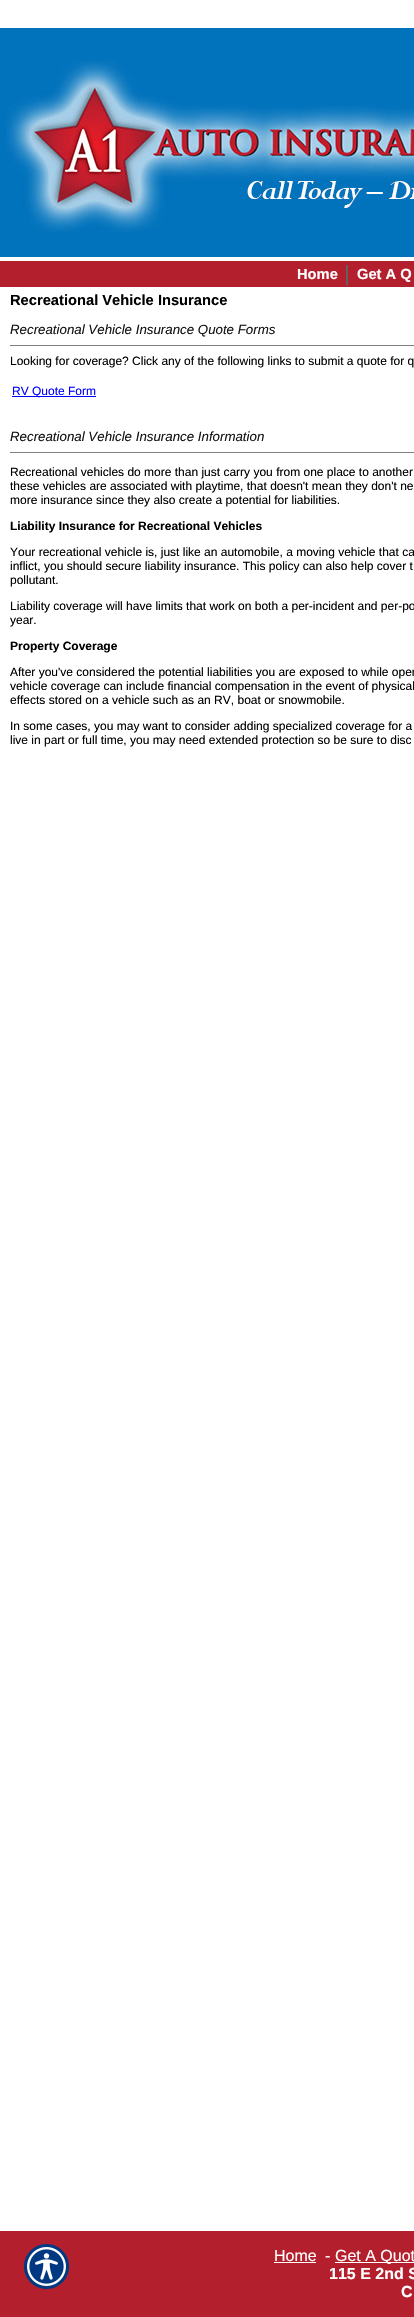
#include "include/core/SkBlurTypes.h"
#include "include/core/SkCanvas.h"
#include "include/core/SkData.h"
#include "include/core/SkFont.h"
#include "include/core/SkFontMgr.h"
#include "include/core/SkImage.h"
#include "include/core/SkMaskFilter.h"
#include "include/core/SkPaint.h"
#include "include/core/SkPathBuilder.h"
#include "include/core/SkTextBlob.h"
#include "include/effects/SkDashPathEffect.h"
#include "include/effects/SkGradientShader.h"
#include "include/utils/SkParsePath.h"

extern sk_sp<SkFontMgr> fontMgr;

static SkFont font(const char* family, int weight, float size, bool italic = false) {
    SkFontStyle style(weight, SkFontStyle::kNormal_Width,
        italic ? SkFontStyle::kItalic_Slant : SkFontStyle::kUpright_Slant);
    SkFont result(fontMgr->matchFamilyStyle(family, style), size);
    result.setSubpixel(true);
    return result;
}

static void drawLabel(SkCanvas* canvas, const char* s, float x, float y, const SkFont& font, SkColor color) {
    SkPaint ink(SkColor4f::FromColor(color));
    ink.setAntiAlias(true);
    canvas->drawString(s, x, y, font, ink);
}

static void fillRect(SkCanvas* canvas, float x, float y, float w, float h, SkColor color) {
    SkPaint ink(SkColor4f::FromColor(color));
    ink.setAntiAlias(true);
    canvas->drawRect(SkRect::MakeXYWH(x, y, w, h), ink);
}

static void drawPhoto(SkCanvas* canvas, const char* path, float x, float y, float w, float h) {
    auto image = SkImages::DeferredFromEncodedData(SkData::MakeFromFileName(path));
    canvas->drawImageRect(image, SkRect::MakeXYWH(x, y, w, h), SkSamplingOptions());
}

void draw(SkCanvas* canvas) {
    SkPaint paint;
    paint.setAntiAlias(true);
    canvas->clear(0xFFFFFFFF);
    drawPhoto(canvas, "assets/img1.png", 0, 28, 414, 259);
    drawPhoto(canvas, "assets/img2.png", 6, 60, 408, 172);
    SkFont font1 = font("Liberation Sans", 700, 14.7f);
    drawLabel(canvas, "Home", 297, 279, font1, 0xFFFFFFFF);
    fillRect(canvas, 346, 265, 2, 20, 0xFF616161);
    drawLabel(canvas, "Get A Q", 357, 279, font1, 0xFFFFFFFF);
    drawLabel(canvas, "Recreational Vehicle Insurance", 10, 305, font1, 0xFF000000);
    fillRect(canvas, 10, 345, 404, 1, 0xFF808080);
    SkFont font2 = font("Liberation Sans", 400, 13.3f, true);
    drawLabel(canvas, "Recreational Vehicle Insurance Quote Forms", 10, 334, font2, 0xFF151515);
    SkFont font3 = font("Liberation Sans", 400, 12);
    drawLabel(canvas, "Looking for coverage? Click any of the following links to submit a quote for q", 10, 365, font3, 0xFF000000);
    fillRect(canvas, 12, 396, 84, 1, 0xFF0000FF);
    drawLabel(canvas, "RV Quote Form", 12, 395, font3, 0xFF0000FF);
    fillRect(canvas, 10, 452, 404, 1, 0xFF808080);
    drawLabel(canvas, "Recreational Vehicle Insurance Information", 10, 441, font2, 0xFF151515);
    drawLabel(canvas, "Recreational vehicles do more than just carry you from one place to another", 10, 476, font3, 0xFF000000);
    drawLabel(canvas, "these vehicles are associated with playtime, that doesn't mean they don't ne", 10, 490, font3, 0xFF000000);
    drawLabel(canvas, "more insurance since they also create a potential for liabilities.", 10, 504, font3, 0xFF000000);
    SkFont font4 = font("Liberation Sans", 700, 12);
    drawLabel(canvas, "Liability Insurance for Recreational Vehicles", 10, 530, font4, 0xFF000000);
    drawLabel(canvas, "Your recreational vehicle is, just like an automobile, a moving vehicle that ca", 10, 556, font3, 0xFF000000);
    drawLabel(canvas, "inflict, you should secure liability insurance. This policy can also help cover t", 10, 570, font3, 0xFF000000);
    drawLabel(canvas, "pollutant.", 10, 584, font3, 0xFF000000);
    drawLabel(canvas, "Liability coverage will have limits that work on both a per-incident and per-po", 10, 610, font3, 0xFF000000);
    drawLabel(canvas, "year.", 10, 624, font3, 0xFF000000);
    drawLabel(canvas, "Property Coverage", 10, 650, font4, 0xFF000000);
    drawLabel(canvas, "After you've considered the potential liabilities you are exposed to while oper", 10, 676, font3, 0xFF000000);
    drawLabel(canvas, "vehicle coverage can include financial compensation in the event of physical", 10, 690, font3, 0xFF000000);
    drawLabel(canvas, "effects stored on a vehicle such as an RV, boat or snowmobile.", 10, 704, font3, 0xFF000000);
    drawLabel(canvas, "In some cases, you may want to consider adding specialized coverage for a", 10, 730, font3, 0xFF000000);
    drawLabel(canvas, "live in part or full time, you may need extended protection so be sure to disc", 10, 744, font3, 0xFF000000);
    fillRect(canvas, 0, 2231, 414, 86, 0xFFB31F2D);
    SkFont font5 = font("Liberation Sans", 400, 16);
    drawLabel(canvas, "Home", 274, 2261, font5, 0xFFFFFFFF);
    fillRect(canvas, 274, 2262, 42, 1, 0xFFFFFFFF);
    drawLabel(canvas, "-", 325, 2261, font5, 0xFFFFFFFF);
    fillRect(canvas, 335, 2262, 79, 1, 0xFFFFFFFF);
    drawLabel(canvas, "Get A Quot", 335, 2261, font5, 0xFFFFFFFF);
    SkFont font6 = font("Liberation Sans", 700, 16);
    drawLabel(canvas, "115 E 2nd S", 329, 2279, font6, 0xFFFFFFFF);
    drawLabel(canvas, "C", 401, 2297, font6, 0xFFFFFFFF);
    drawPhoto(canvas, "assets/img3.png", 24, 2244, 45, 45);
}
